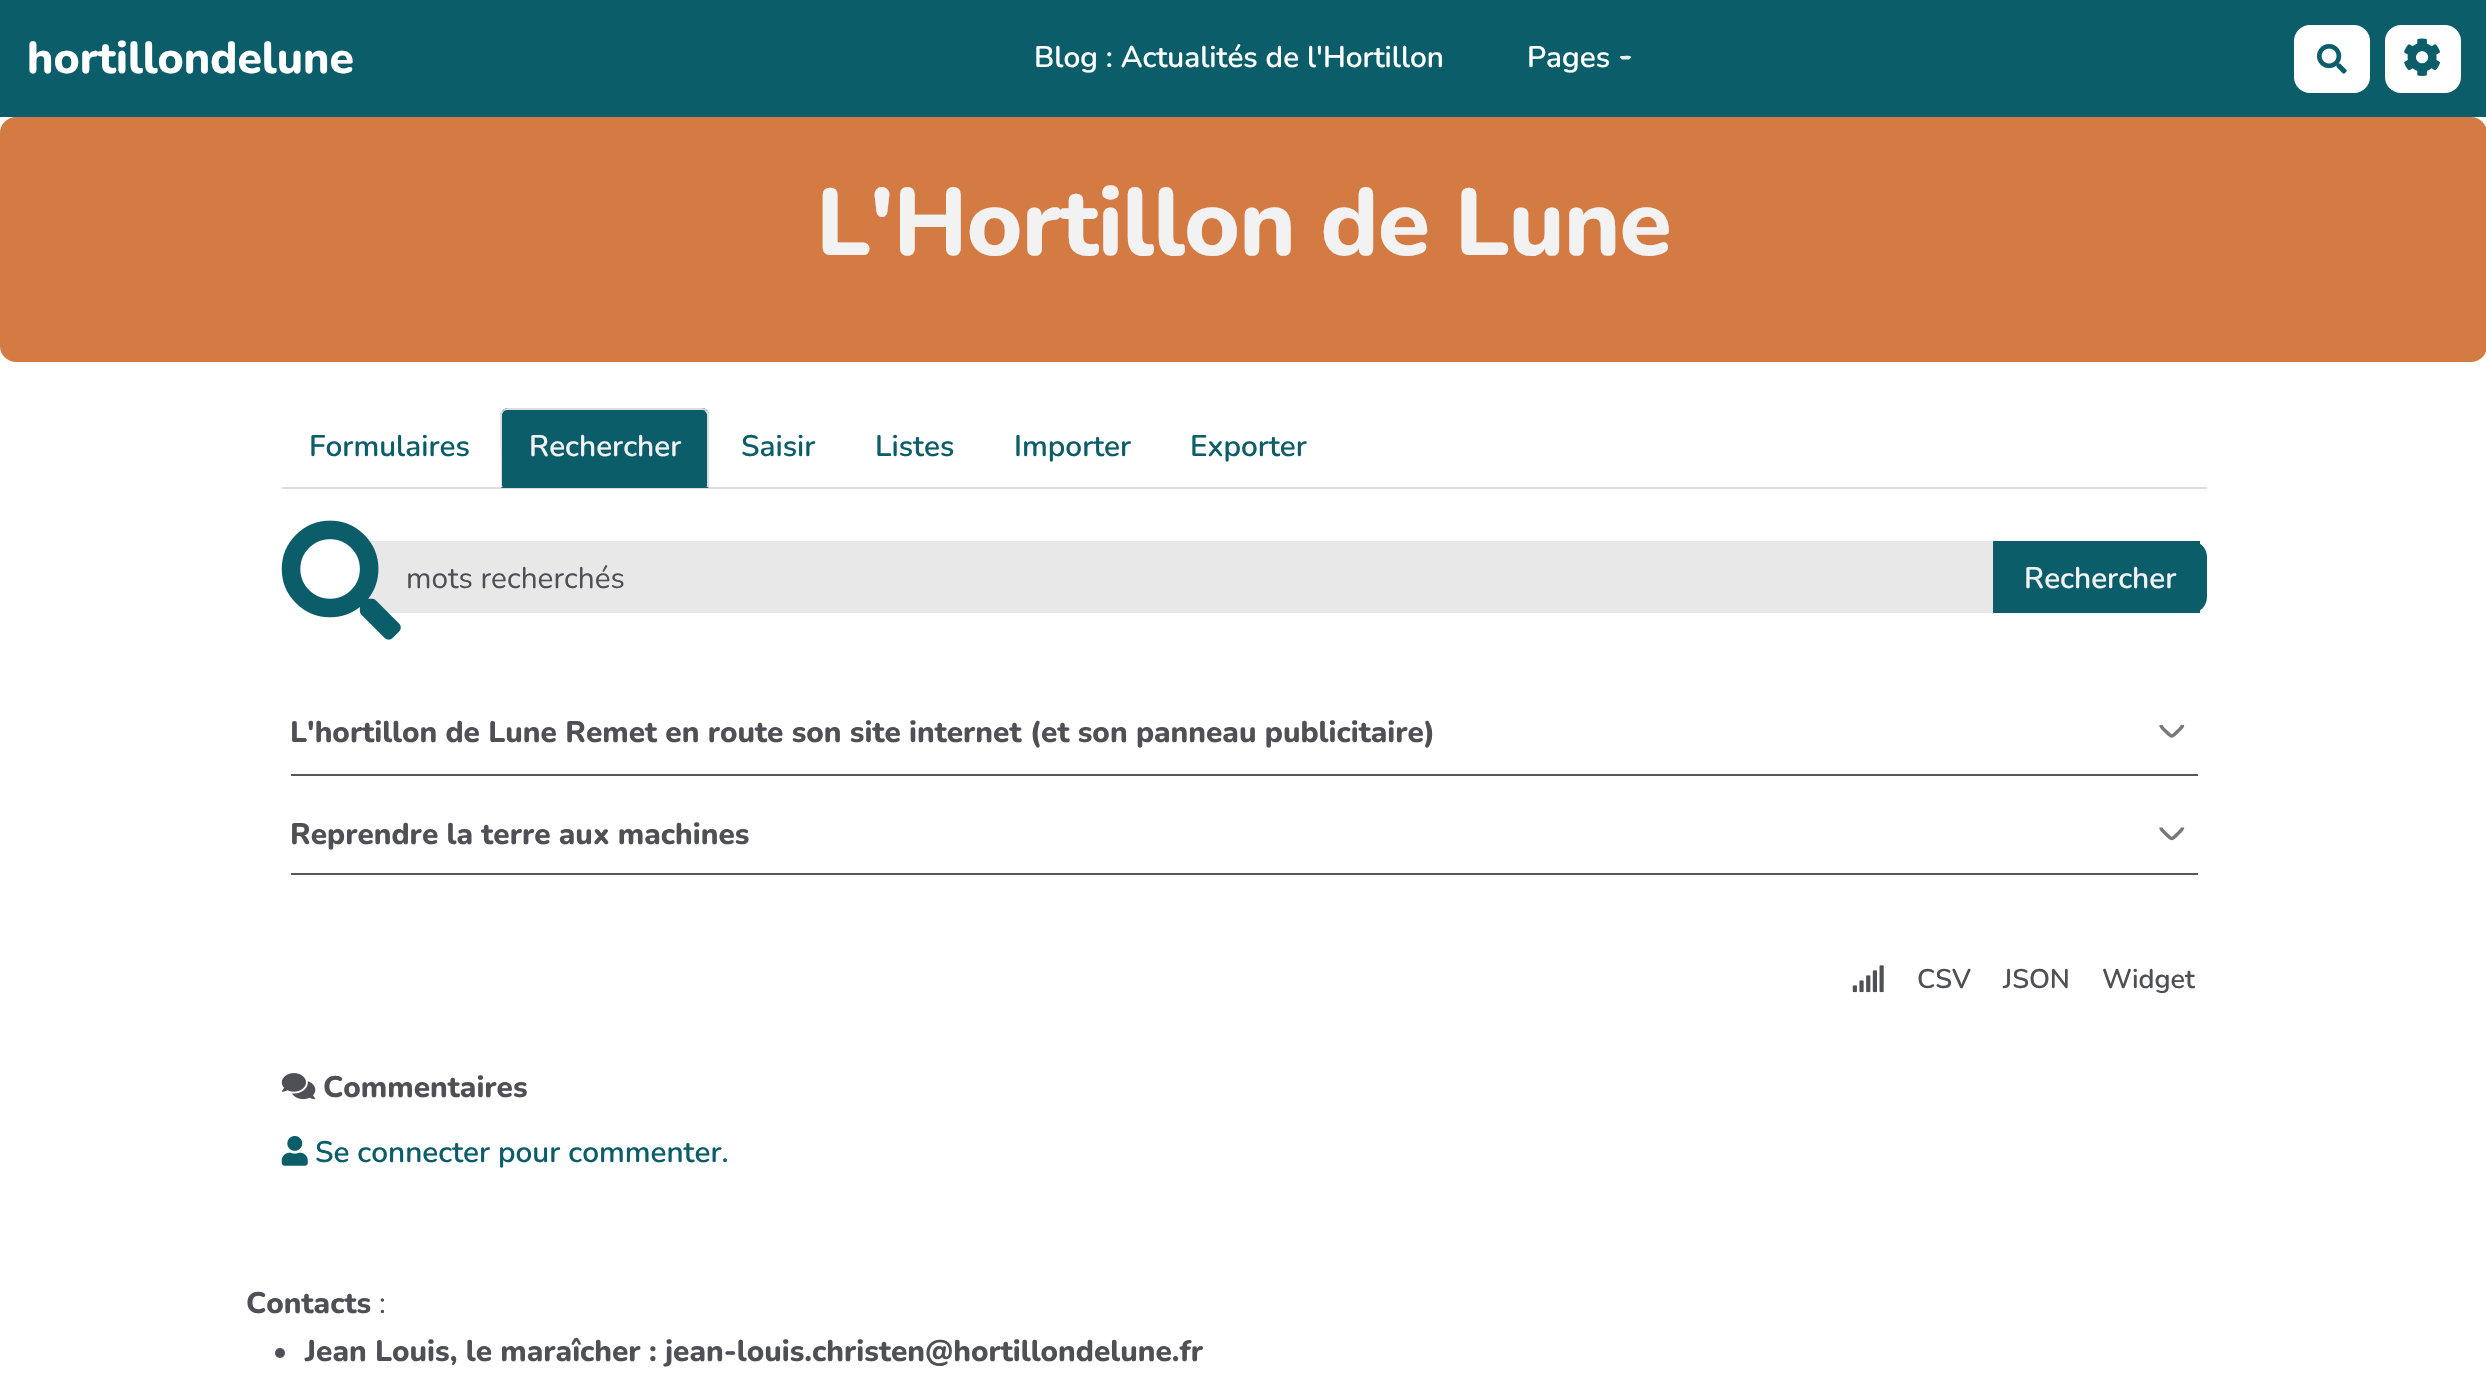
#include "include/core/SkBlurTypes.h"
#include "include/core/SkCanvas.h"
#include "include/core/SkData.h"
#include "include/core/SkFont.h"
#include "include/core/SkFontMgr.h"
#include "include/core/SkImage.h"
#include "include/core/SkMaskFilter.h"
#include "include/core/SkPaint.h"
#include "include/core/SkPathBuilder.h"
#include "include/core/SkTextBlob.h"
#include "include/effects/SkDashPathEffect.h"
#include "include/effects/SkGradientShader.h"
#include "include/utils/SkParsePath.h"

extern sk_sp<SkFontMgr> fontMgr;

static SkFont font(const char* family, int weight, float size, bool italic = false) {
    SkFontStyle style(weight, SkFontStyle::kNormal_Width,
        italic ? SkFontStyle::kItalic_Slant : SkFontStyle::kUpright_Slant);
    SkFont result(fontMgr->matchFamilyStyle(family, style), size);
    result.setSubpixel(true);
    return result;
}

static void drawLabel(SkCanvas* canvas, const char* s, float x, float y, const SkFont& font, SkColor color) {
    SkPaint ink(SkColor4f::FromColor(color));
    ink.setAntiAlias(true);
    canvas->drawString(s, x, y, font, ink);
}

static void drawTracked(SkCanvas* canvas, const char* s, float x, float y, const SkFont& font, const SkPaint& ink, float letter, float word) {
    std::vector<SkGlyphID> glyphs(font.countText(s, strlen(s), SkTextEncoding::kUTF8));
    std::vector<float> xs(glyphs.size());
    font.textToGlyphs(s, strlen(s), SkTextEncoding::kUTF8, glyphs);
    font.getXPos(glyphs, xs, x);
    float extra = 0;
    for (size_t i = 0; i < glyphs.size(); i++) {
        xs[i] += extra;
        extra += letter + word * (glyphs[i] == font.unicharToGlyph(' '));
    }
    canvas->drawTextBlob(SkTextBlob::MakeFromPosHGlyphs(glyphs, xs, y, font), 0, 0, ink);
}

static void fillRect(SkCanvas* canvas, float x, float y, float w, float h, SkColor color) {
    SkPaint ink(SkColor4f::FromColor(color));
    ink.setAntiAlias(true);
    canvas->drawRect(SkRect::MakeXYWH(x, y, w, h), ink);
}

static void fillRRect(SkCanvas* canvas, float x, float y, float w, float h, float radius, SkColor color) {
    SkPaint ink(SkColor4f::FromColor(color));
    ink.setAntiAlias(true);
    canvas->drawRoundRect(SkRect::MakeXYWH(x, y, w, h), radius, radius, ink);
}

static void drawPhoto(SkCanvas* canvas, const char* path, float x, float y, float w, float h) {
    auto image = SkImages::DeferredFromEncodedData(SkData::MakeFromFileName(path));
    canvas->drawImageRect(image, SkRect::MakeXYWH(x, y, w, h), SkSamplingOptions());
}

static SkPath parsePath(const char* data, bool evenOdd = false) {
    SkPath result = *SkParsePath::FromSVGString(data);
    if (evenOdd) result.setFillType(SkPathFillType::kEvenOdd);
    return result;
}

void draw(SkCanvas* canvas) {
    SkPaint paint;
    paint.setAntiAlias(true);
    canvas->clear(0xFFFFFFFF);
    fillRect(canvas, 0, 0, 2486, 117, 0xFF0C5D6A);
    SkFont font1 = font("Nunito", 800, 44.5f);
    drawLabel(canvas, "hortillondelune", 27, 73, font1, 0xFFFFFFFF);
    SkFont font2 = font("Nunito", 600, 29.75f);
    drawLabel(canvas, "Blog : Actualités de l'Hortillon", 1034, 67, font2, 0xFFFFFFFF);
    drawLabel(canvas, "Pages", 1527, 67, font2, 0xFFFFFFFF);
    paint.setColor(0xFFE7EFF0);
    canvas->drawPath(parsePath("M1622 56C1624 56 1630 55 1631.5 57L1629 59.5H1622L1619.5 57C1620 56.5 1621 56 1622 56Z"), paint);
    fillRRect(canvas, 2294, 25, 76, 68, 16, 0xFFFFFFFF);
    drawPhoto(canvas, "assets/img1.png", 2317, 44, 30, 30);
    fillRRect(canvas, 2385, 25, 76, 68, 16, 0xFFFFFFFF);
    drawPhoto(canvas, "assets/img2.png", 2404, 38, 36, 38);
    fillRRect(canvas, 0, 117, 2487, 245, 16, 0xFFD47B43);
    SkFont font3 = font("Nunito", 800, 95.25f);
    paint.setColor(0xFFF2F2F2);
    drawTracked(canvas, "L'Hortillon de Lune", 816, 255, font3, paint, -0.9f, 0);
    fillRect(canvas, 282, 487, 1925, 2, 0xFFDDDDDD);
    drawLabel(canvas, "Formulaires", 309, 456, font2, 0xFF0C5D6A);
    paint.setColor(0xFF0C5D6A);
    canvas->drawPath(parsePath("M508 408H702C706 408 709 411 709 415V488H501V415C501 411 504 408 508 408Z"), paint);
    paint.setColor(0xFFDDDDDD);
    canvas->drawPath(parsePath("M508 408C506 408 504 409 503 410L504 411C505 410 507 410 508 410H702C703 410 705 410 705 411L707 410C706 409 704 408 702 408Z"), paint);
    canvas->drawPath(parsePath("M707 410L709 413V488L706 486H707V414L705 411Z"), paint);
    canvas->drawPath(parsePath("M500 413L503 410L504 411L502 414V486H503L501 488Z"), paint);
    drawLabel(canvas, "Rechercher", 529, 456, font2, 0xFFF2F2F2);
    drawLabel(canvas, "Saisir", 741, 456, font2, 0xFF0C5D6A);
    drawLabel(canvas, "Listes", 875, 456, font2, 0xFF0C5D6A);
    drawLabel(canvas, "Importer", 1014, 456, font2, 0xFF0C5D6A);
    drawLabel(canvas, "Exporter", 1190, 456, font2, 0xFF0C5D6A);
    fillRect(canvas, 368, 541, 1625, 72, 0xFFE8E8E8);
    drawPhoto(canvas, "assets/img3.png", 281, 520, 120, 120);
    SkFont font4 = font("Nunito", 400, 29.75f);
    drawLabel(canvas, "mots recherchés", 406, 588, font4, 0xFF4E5056);
    paint.setColor(0xFF0C5D6A);
    canvas->drawPath(parsePath("M1993 541H2191C2200 541 2207 548 2207 557V597C2207 606 2200 613 2191 613H1993Z"), paint);
    fillRect(canvas, 2191, 541, 9, 3, 0xFF0C5D6A);
    fillRect(canvas, 2191, 610, 9, 3, 0xFF0C5D6A);
    drawLabel(canvas, "Rechercher", 2024, 588, font2, 0xFFF2F2F2);
    SkFont font5 = font("Nunito", 800, 29.75f);
    drawLabel(canvas, "L'hortillon de Lune Remet en route son site internet (et son panneau publicitaire)", 290, 742, font5, 0xFF4E5056);
    paint.setStroke(true);
    paint.setStrokeWidth(3.5f);
    paint.setColor(0xFF79797D);
    canvas->drawPath(parsePath("M2182.5 725C2182.5 727.5 2179.5 729.5 2178 731C2171.5 737.5 2172 737.5 2165.5 731C2164 729.5 2161 727.5 2161 725"), paint);
    fillRect(canvas, 291, 774, 1907, 2, 0xFF57575C);
    fillRect(canvas, 291, 873, 1907, 2, 0xFF57575C);
    drawLabel(canvas, "Reprendre la terre aux machines", 290, 844, font5, 0xFF4E5056);
    canvas->drawPath(parsePath("M2182.5 827.5C2182.5 830 2179.5 832 2178 833.5C2171.5 840 2172 840 2165.5 833.5C2164 832 2161 830 2161 827.5"), paint);
    drawPhoto(canvas, "assets/img4.png", 1852, 965, 32, 28);
    SkFont font6 = font("Nunito", 600, 27);
    drawLabel(canvas, "CSV", 1917, 988, font6, 0xFF4E5056);
    drawLabel(canvas, "JSON", 2003, 988, font6, 0xFF4E5056);
    drawLabel(canvas, "Widget", 2102, 988, font6, 0xFF4E5056);
    drawPhoto(canvas, "assets/img5.png", 281, 1073, 35, 27);
    drawLabel(canvas, "Commentaires", 323, 1097, font5, 0xFF4E5056);
    drawPhoto(canvas, "assets/img6.png", 281, 1136, 27, 30);
    drawLabel(canvas, "Se connecter pour commenter.", 315, 1162, font2, 0xFF0C5D6A);
    drawLabel(canvas, "Contacts", 246, 1313, font5, 0xFF4E5056);
    drawLabel(canvas, ":", 379, 1313, font4, 0xFF4E5056);
    paint.setStroke(false);
    paint.setColor(0xFF4E5056);
    canvas->drawCircle(280, 1353, 5, paint);
    drawLabel(canvas, "Jean Louis, le maraîcher : jean-louis.christen@hortillondelune.fr", 305, 1361, font5, 0xFF4E5056);
}
